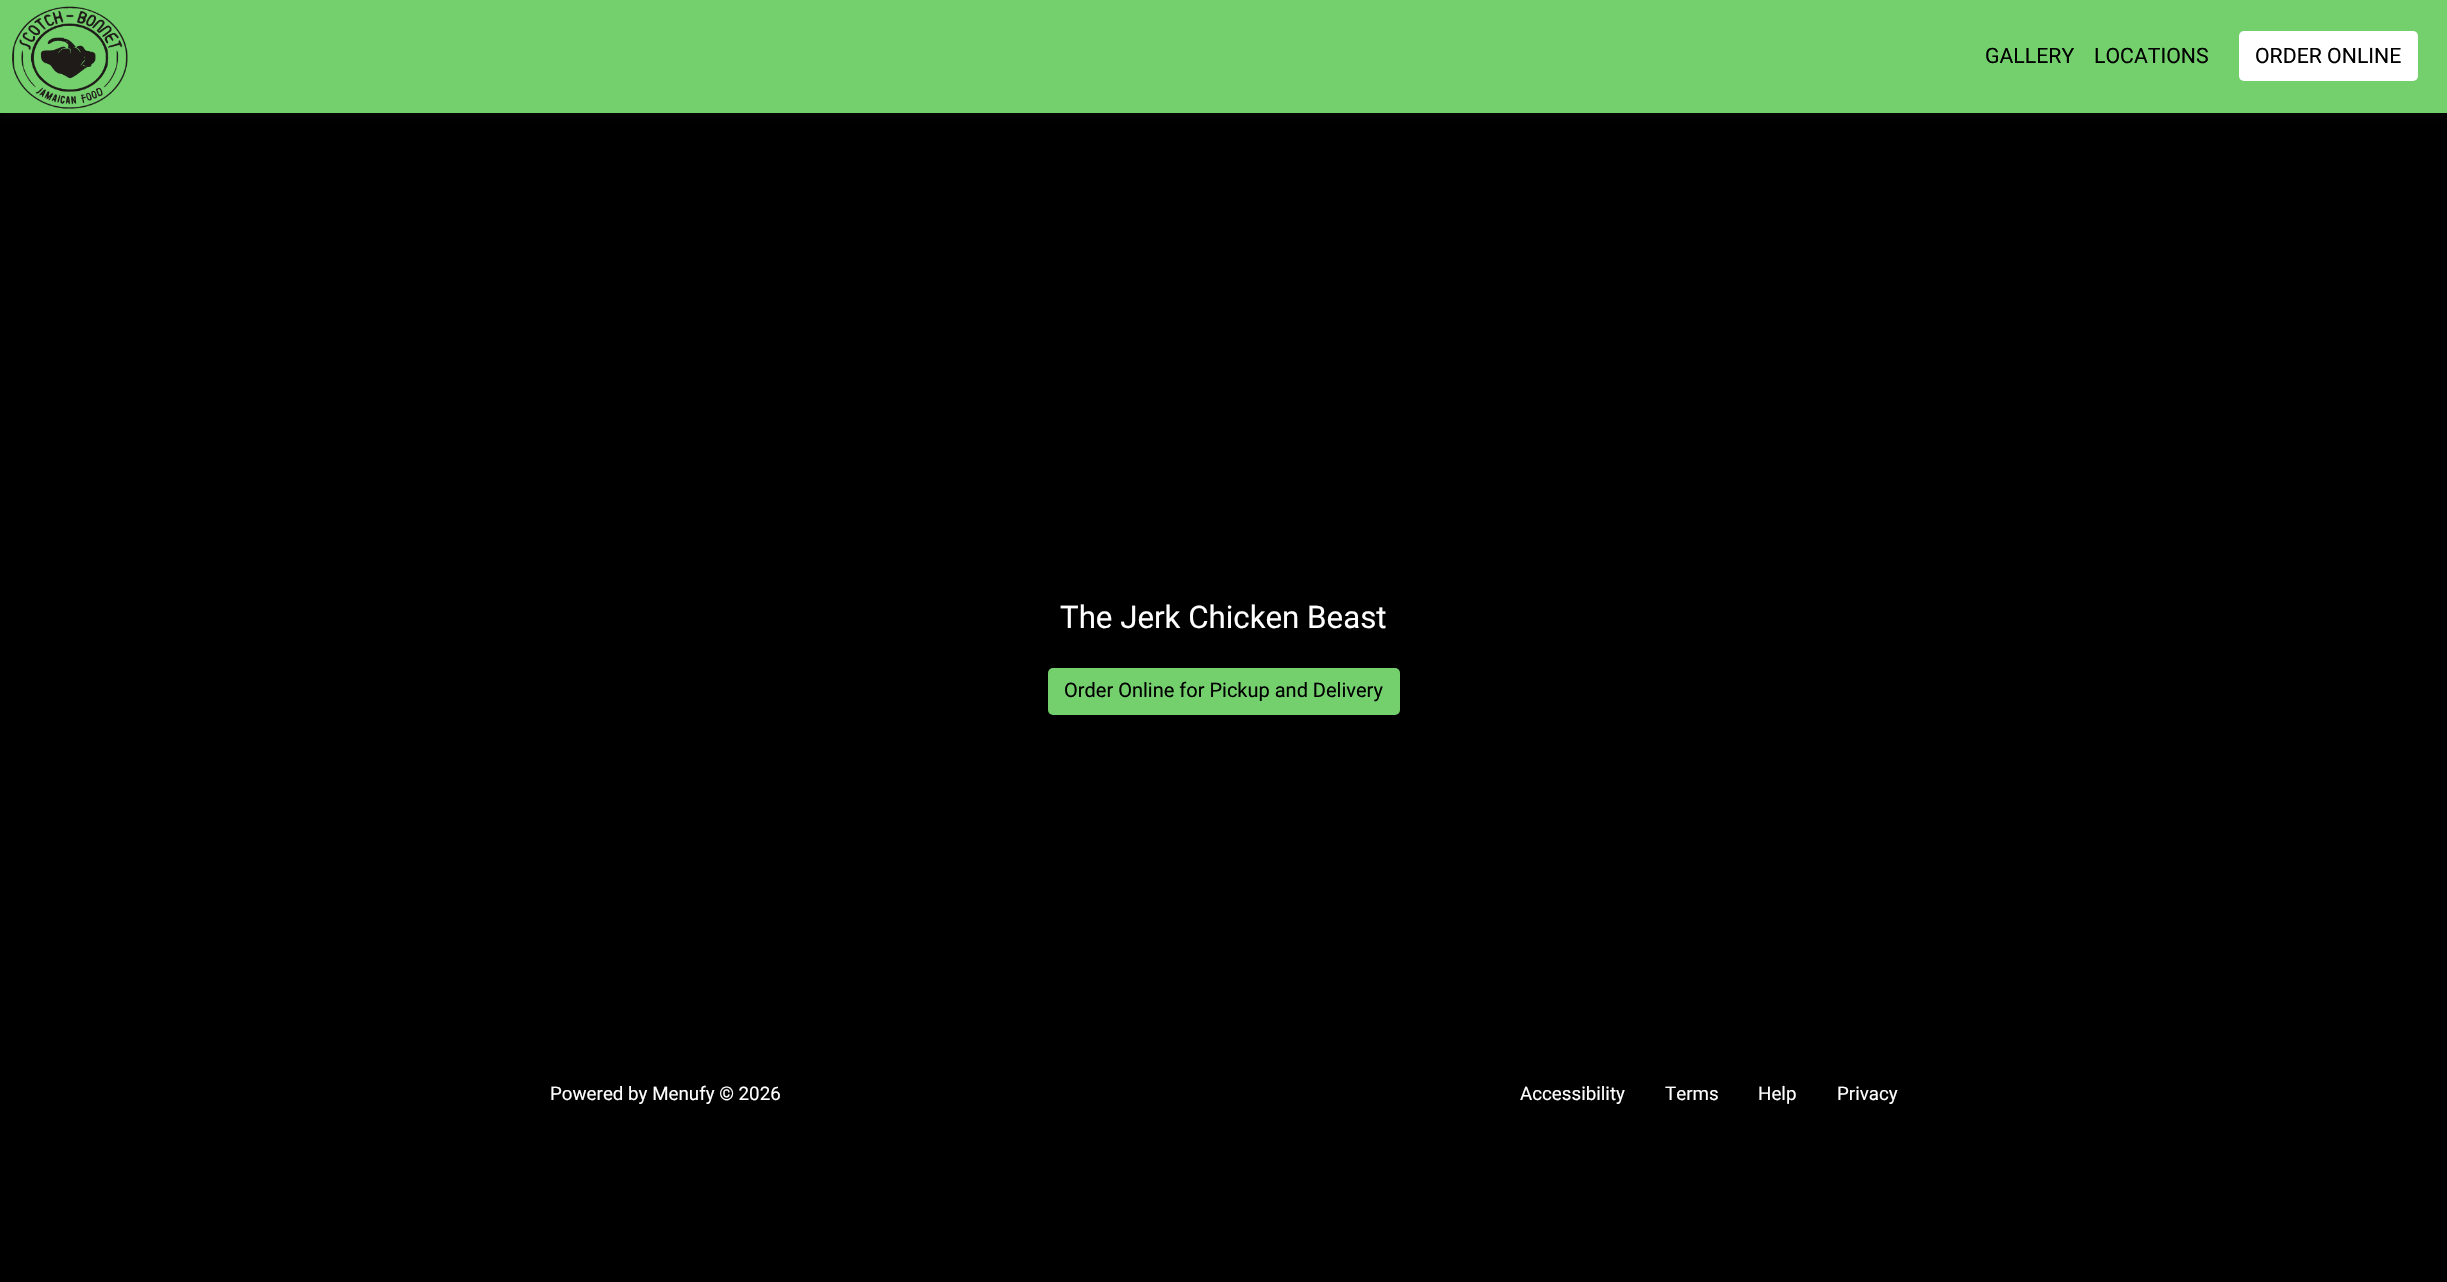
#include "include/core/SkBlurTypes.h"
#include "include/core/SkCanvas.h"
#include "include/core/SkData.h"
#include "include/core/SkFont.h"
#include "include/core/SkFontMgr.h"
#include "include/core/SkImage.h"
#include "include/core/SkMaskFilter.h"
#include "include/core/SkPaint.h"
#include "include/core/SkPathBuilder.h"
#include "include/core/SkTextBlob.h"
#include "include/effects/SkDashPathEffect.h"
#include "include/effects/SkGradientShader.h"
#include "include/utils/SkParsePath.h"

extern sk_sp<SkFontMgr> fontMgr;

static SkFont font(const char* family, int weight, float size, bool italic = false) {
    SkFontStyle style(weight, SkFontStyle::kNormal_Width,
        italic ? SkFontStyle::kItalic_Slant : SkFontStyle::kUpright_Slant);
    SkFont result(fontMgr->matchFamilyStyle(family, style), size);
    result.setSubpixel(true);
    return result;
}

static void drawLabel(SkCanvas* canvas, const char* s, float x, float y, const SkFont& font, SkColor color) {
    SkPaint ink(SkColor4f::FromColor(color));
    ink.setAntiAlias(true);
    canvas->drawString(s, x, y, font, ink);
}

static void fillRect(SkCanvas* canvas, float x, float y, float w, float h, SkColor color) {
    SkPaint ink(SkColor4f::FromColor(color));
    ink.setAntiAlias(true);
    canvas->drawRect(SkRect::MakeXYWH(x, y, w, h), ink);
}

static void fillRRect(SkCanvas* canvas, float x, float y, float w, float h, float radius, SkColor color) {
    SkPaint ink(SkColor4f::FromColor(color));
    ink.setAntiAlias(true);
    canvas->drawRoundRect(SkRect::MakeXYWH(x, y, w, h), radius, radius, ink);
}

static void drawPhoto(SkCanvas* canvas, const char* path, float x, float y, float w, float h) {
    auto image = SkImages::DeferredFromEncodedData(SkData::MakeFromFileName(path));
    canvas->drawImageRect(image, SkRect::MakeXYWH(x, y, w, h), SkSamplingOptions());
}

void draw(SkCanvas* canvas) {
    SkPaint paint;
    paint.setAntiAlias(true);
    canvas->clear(0xFF000000);
    paint.setColor(0x47202124);
    paint.setMaskFilter(SkMaskFilter::MakeBlur(kNormal_SkBlurStyle, 4));
    canvas->drawRect(SkRect::MakeXYWH(0, 1, 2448, 113), paint);
    paint.setMaskFilter(nullptr);
    fillRect(canvas, 0, 0, 2447, 113, 0xFF74D06D);
    drawPhoto(canvas, "assets/img1.png", 12, 6, 116, 103);
    SkFont font1 = font("Roboto", 400, 21.25f);
    drawLabel(canvas, "GALLERY", 1985, 63, font1, 0xFF000000);
    drawLabel(canvas, "LOCATIONS", 2094, 63, font1, 0xFF000000);
    fillRRect(canvas, 2239, 31, 179, 50, 5, 0xFFFFFFFF);
    drawLabel(canvas, "ORDER ONLINE", 2255, 63, font1, 0xFF000000);
    SkFont font2 = font("Roboto", 400, 31.25f);
    drawLabel(canvas, "The Jerk Chicken Beast", 1060, 628, font2, 0xFFFFFFFF);
    fillRRect(canvas, 1048, 668, 352, 47, 5, 0xFF74D06D);
    SkFont font3 = font("Roboto", 400, 20);
    drawLabel(canvas, "Order Online for Pickup and Delivery", 1064, 697, font3, 0xFF000000);
    SkFont font4 = font("Roboto", 400, 18.75f);
    drawLabel(canvas, "Powered by Menufy © 2026", 550, 1100, font4, 0xFFFFFFFF);
    drawLabel(canvas, "Accessibility", 1520, 1100, font4, 0xFFFFFFFF);
    drawLabel(canvas, "Terms", 1665, 1100, font4, 0xFFFFFFFF);
    drawLabel(canvas, "Help", 1758, 1100, font4, 0xFFFFFFFF);
    drawLabel(canvas, "Privacy", 1837, 1100, font4, 0xFFFFFFFF);
}
